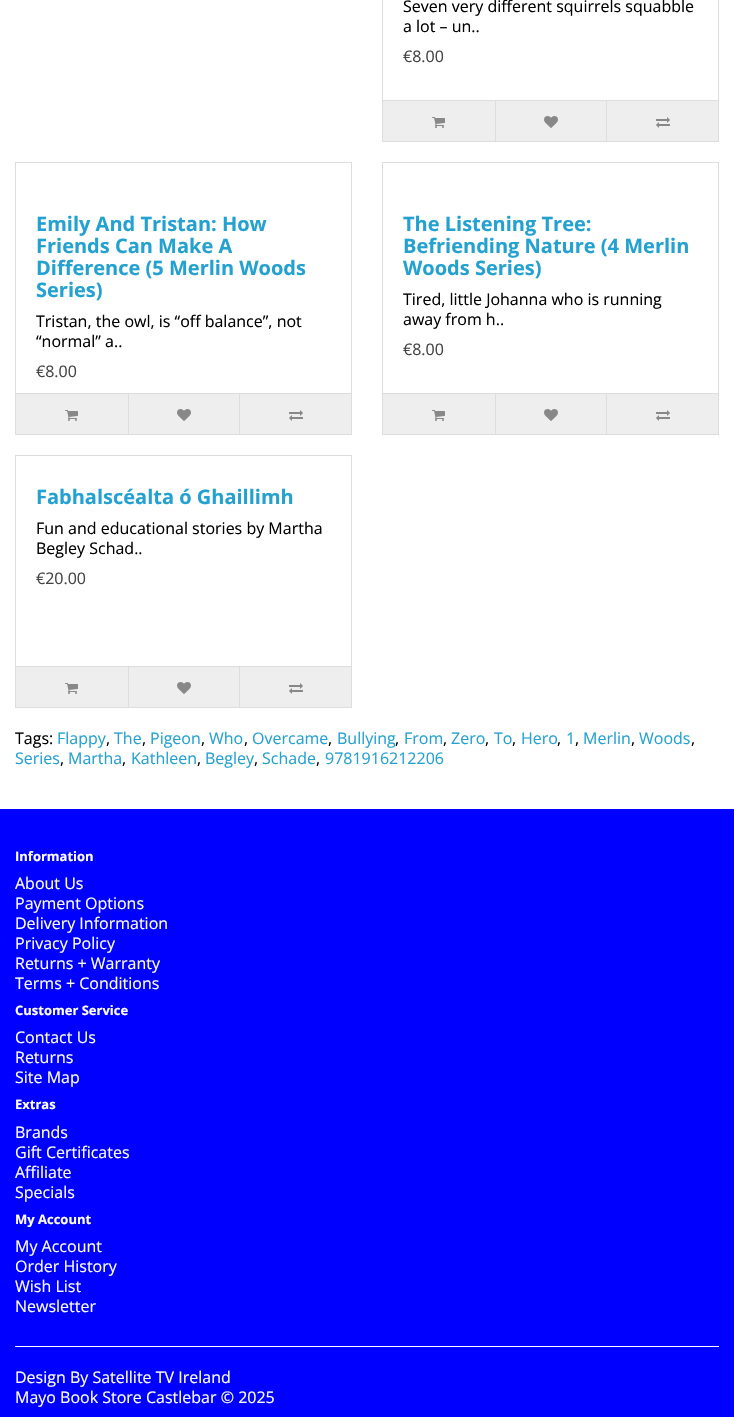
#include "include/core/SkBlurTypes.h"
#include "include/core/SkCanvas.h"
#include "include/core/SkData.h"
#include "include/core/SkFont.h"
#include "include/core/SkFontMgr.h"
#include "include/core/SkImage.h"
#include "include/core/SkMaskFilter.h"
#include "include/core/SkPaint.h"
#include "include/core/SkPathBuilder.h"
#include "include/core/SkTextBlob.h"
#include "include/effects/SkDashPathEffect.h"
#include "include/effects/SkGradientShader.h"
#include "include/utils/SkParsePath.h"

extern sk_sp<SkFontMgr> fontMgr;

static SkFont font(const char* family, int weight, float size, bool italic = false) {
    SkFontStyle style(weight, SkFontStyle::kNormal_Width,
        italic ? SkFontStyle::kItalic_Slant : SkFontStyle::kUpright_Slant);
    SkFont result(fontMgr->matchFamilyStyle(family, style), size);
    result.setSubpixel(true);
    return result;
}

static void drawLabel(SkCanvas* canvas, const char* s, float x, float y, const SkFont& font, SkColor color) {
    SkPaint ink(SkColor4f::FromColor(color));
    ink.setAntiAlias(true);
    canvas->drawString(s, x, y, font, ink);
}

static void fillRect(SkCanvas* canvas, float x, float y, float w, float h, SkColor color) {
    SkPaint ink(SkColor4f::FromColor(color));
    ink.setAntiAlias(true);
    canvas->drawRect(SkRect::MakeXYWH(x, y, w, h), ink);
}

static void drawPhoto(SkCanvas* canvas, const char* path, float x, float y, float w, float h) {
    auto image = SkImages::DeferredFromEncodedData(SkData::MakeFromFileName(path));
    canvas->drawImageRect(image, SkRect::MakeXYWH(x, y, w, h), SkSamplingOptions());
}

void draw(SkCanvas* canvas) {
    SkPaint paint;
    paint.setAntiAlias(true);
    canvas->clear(0xFFFFFFFF);
    paint.setStroke(true);
    paint.setStrokeWidth(1);
    paint.setColor(0xFFDDDDDD);
    canvas->drawRect(SkRect::MakeXYWH(382.5f, -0.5f, 336, 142), paint);
    SkFont font1 = font("Open Sans", 400, 16);
    drawLabel(canvas, "Seven very different squirrels squabble", 403, 12, font1, 0xFF000000);
    drawLabel(canvas, "a lot – un..", 403, 32, font1, 0xFF000000);
    drawLabel(canvas, "€8.00", 403, 62, font1, 0xFF444444);
    fillRect(canvas, 383, 101, 335, 40, 0xFFEEEEEE);
    fillRect(canvas, 383, 100, 335, 1, 0xFFDDDDDD);
    drawPhoto(canvas, "assets/img1.png", 432, 117, 13, 11);
    fillRect(canvas, 495, 101, 1, 40, 0xFFDDDDDD);
    drawPhoto(canvas, "assets/img2.png", 544, 116, 14, 12);
    fillRect(canvas, 606, 101, 1, 40, 0xFFDDDDDD);
    drawPhoto(canvas, "assets/img3.png", 656, 117, 14, 11);
    canvas->drawRect(SkRect::MakeXYWH(15.5f, 162.5f, 336, 272), paint);
    SkFont font2 = font("Open Sans", 700, 20);
    drawLabel(canvas, "Emily And Tristan: How", 36, 231, font2, 0xFF23A1D1);
    drawLabel(canvas, "Friends Can Make A", 36, 253, font2, 0xFF23A1D1);
    drawLabel(canvas, "Difference (5 Merlin Woods", 36, 275, font2, 0xFF23A1D1);
    drawLabel(canvas, "Series)", 36, 297, font2, 0xFF23A1D1);
    drawLabel(canvas, "Tristan, the owl, is “off balance”, not", 36, 327, font1, 0xFF000000);
    drawLabel(canvas, "“normal” a..", 36, 347, font1, 0xFF000000);
    drawLabel(canvas, "€8.00", 36, 377, font1, 0xFF444444);
    fillRect(canvas, 16, 394, 335, 40, 0xFFEEEEEE);
    fillRect(canvas, 16, 393, 335, 1, 0xFFDDDDDD);
    drawPhoto(canvas, "assets/img1.png", 65, 410, 13, 11);
    fillRect(canvas, 128, 394, 1, 40, 0xFFDDDDDD);
    drawPhoto(canvas, "assets/img2.png", 177, 409, 14, 12);
    fillRect(canvas, 239, 394, 1, 40, 0xFFDDDDDD);
    drawPhoto(canvas, "assets/img3.png", 289, 410, 14, 11);
    canvas->drawRect(SkRect::MakeXYWH(382.5f, 162.5f, 336, 272), paint);
    drawLabel(canvas, "The Listening Tree:", 403, 231, font2, 0xFF23A1D1);
    drawLabel(canvas, "Befriending Nature (4 Merlin", 403, 253, font2, 0xFF23A1D1);
    drawLabel(canvas, "Woods Series)", 403, 275, font2, 0xFF23A1D1);
    drawLabel(canvas, "Tired, little Johanna who is running", 403, 305, font1, 0xFF000000);
    drawLabel(canvas, "away from h..", 403, 325, font1, 0xFF000000);
    drawLabel(canvas, "€8.00", 403, 355, font1, 0xFF444444);
    fillRect(canvas, 383, 394, 335, 40, 0xFFEEEEEE);
    fillRect(canvas, 383, 393, 335, 1, 0xFFDDDDDD);
    drawPhoto(canvas, "assets/img1.png", 432, 410, 13, 11);
    fillRect(canvas, 495, 394, 1, 40, 0xFFDDDDDD);
    drawPhoto(canvas, "assets/img2.png", 544, 409, 14, 12);
    fillRect(canvas, 606, 394, 1, 40, 0xFFDDDDDD);
    drawPhoto(canvas, "assets/img3.png", 656, 410, 14, 11);
    canvas->drawRect(SkRect::MakeXYWH(15.5f, 455.5f, 336, 252), paint);
    drawLabel(canvas, "Fabhalscéalta ó Ghaillimh", 36, 504, font2, 0xFF23A1D1);
    drawLabel(canvas, "Fun and educational stories by Martha", 36, 534, font1, 0xFF000000);
    drawLabel(canvas, "Begley Schad..", 36, 554, font1, 0xFF000000);
    drawLabel(canvas, "€20.00", 36, 584, font1, 0xFF444444);
    fillRect(canvas, 16, 667, 335, 40, 0xFFEEEEEE);
    fillRect(canvas, 16, 666, 335, 1, 0xFFDDDDDD);
    drawPhoto(canvas, "assets/img1.png", 65, 683, 13, 11);
    fillRect(canvas, 128, 667, 1, 40, 0xFFDDDDDD);
    drawPhoto(canvas, "assets/img2.png", 177, 682, 14, 12);
    fillRect(canvas, 239, 667, 1, 40, 0xFFDDDDDD);
    drawPhoto(canvas, "assets/img3.png", 289, 683, 14, 11);
    drawLabel(canvas, "Tags:", 15, 744, font1, 0xFF000000);
    drawLabel(canvas, "Flappy", 57, 744, font1, 0xFF23A1D1);
    drawLabel(canvas, "The", 114, 744, font1, 0xFF23A1D1);
    drawLabel(canvas, "Pigeon", 150, 744, font1, 0xFF23A1D1);
    drawLabel(canvas, "Who", 209, 744, font1, 0xFF23A1D1);
    drawLabel(canvas, "Overcame", 252, 744, font1, 0xFF23A1D1);
    drawLabel(canvas, "Bullying", 337, 744, font1, 0xFF23A1D1);
    drawLabel(canvas, "From", 404, 744, font1, 0xFF23A1D1);
    drawLabel(canvas, "Zero", 451, 744, font1, 0xFF23A1D1);
    drawLabel(canvas, "To", 494, 744, font1, 0xFF23A1D1);
    drawLabel(canvas, "Hero", 521, 744, font1, 0xFF23A1D1);
    drawLabel(canvas, "1", 566, 744, font1, 0xFF23A1D1);
    drawLabel(canvas, "Merlin", 583, 744, font1, 0xFF23A1D1);
    drawLabel(canvas, "Woods", 639, 744, font1, 0xFF23A1D1);
    drawLabel(canvas, ",", 106, 744, font1, 0xFF000000);
    drawLabel(canvas, ",", 142, 744, font1, 0xFF000000);
    drawLabel(canvas, ",", 201, 744, font1, 0xFF000000);
    drawLabel(canvas, ",", 244, 744, font1, 0xFF000000);
    drawLabel(canvas, ",", 328, 744, font1, 0xFF000000);
    drawLabel(canvas, ",", 395, 744, font1, 0xFF000000);
    drawLabel(canvas, ",", 443, 744, font1, 0xFF000000);
    drawLabel(canvas, ",", 485, 744, font1, 0xFF000000);
    drawLabel(canvas, ",", 512, 744, font1, 0xFF000000);
    drawLabel(canvas, ",", 557, 744, font1, 0xFF000000);
    drawLabel(canvas, ",", 575, 744, font1, 0xFF000000);
    drawLabel(canvas, ",", 631, 744, font1, 0xFF000000);
    drawLabel(canvas, ",", 691, 744, font1, 0xFF000000);
    drawLabel(canvas, "Series", 15, 764, font1, 0xFF23A1D1);
    drawLabel(canvas, ",", 60, 764, font1, 0xFF000000);
    drawLabel(canvas, "Martha", 68, 764, font1, 0xFF23A1D1);
    drawLabel(canvas, ",", 122, 764, font1, 0xFF000000);
    drawLabel(canvas, "Kathleen", 131, 764, font1, 0xFF23A1D1);
    drawLabel(canvas, ",", 197, 764, font1, 0xFF000000);
    drawLabel(canvas, "Begley", 205, 764, font1, 0xFF23A1D1);
    drawLabel(canvas, ",", 254, 764, font1, 0xFF000000);
    drawLabel(canvas, "Schade", 262, 764, font1, 0xFF23A1D1);
    drawLabel(canvas, ",", 316, 764, font1, 0xFF000000);
    drawLabel(canvas, "9781916212206", 325, 764, font1, 0xFF23A1D1);
    fillRect(canvas, 0, 809, 734, 608, 0xFF0000FF);
    SkFont font3 = font("Open Sans", 700, 13);
    drawLabel(canvas, "Information", 15, 861, font3, 0xFFFFFFFF);
    drawLabel(canvas, "About Us", 15, 889, font1, 0xFFFFFFFF);
    drawLabel(canvas, "Payment Options", 15, 909, font1, 0xFFFFFFFF);
    drawLabel(canvas, "Delivery Information", 15, 929, font1, 0xFFFFFFFF);
    drawLabel(canvas, "Privacy Policy", 15, 949, font1, 0xFFFFFFFF);
    drawLabel(canvas, "Returns + Warranty", 15, 969, font1, 0xFFFFFFFF);
    drawLabel(canvas, "Terms + Conditions", 15, 989, font1, 0xFFFFFFFF);
    drawLabel(canvas, "Customer Service", 15, 1015, font3, 0xFFFFFFFF);
    drawLabel(canvas, "Contact Us", 15, 1043, font1, 0xFFFFFFFF);
    drawLabel(canvas, "Returns", 15, 1063, font1, 0xFFFFFFFF);
    drawLabel(canvas, "Site Map", 15, 1083, font1, 0xFFFFFFFF);
    drawLabel(canvas, "Extras", 15, 1109, font3, 0xFFFFFFFF);
    drawLabel(canvas, "Brands", 15, 1138, font1, 0xFFFFFFFF);
    drawLabel(canvas, "Gift Certificates", 15, 1158, font1, 0xFFFFFFFF);
    drawLabel(canvas, "Affiliate", 15, 1178, font1, 0xFFFFFFFF);
    drawLabel(canvas, "Specials", 15, 1198, font1, 0xFFFFFFFF);
    drawLabel(canvas, "My Account", 15, 1224, font3, 0xFFFFFFFF);
    drawLabel(canvas, "My Account", 15, 1252, font1, 0xFFFFFFFF);
    drawLabel(canvas, "Order History", 15, 1272, font1, 0xFFFFFFFF);
    drawLabel(canvas, "Wish List", 15, 1292, font1, 0xFFFFFFFF);
    drawLabel(canvas, "Newsletter", 15, 1312, font1, 0xFFFFFFFF);
    fillRect(canvas, 15, 1346, 704, 1, 0xFFFFFFFF);
    drawLabel(canvas, "Design By Satellite TV Ireland", 15, 1383, font1, 0xFFFFFFFF);
    drawLabel(canvas, "Mayo Book Store Castlebar © 2025", 15, 1403, font1, 0xFFFFFFFF);
}
